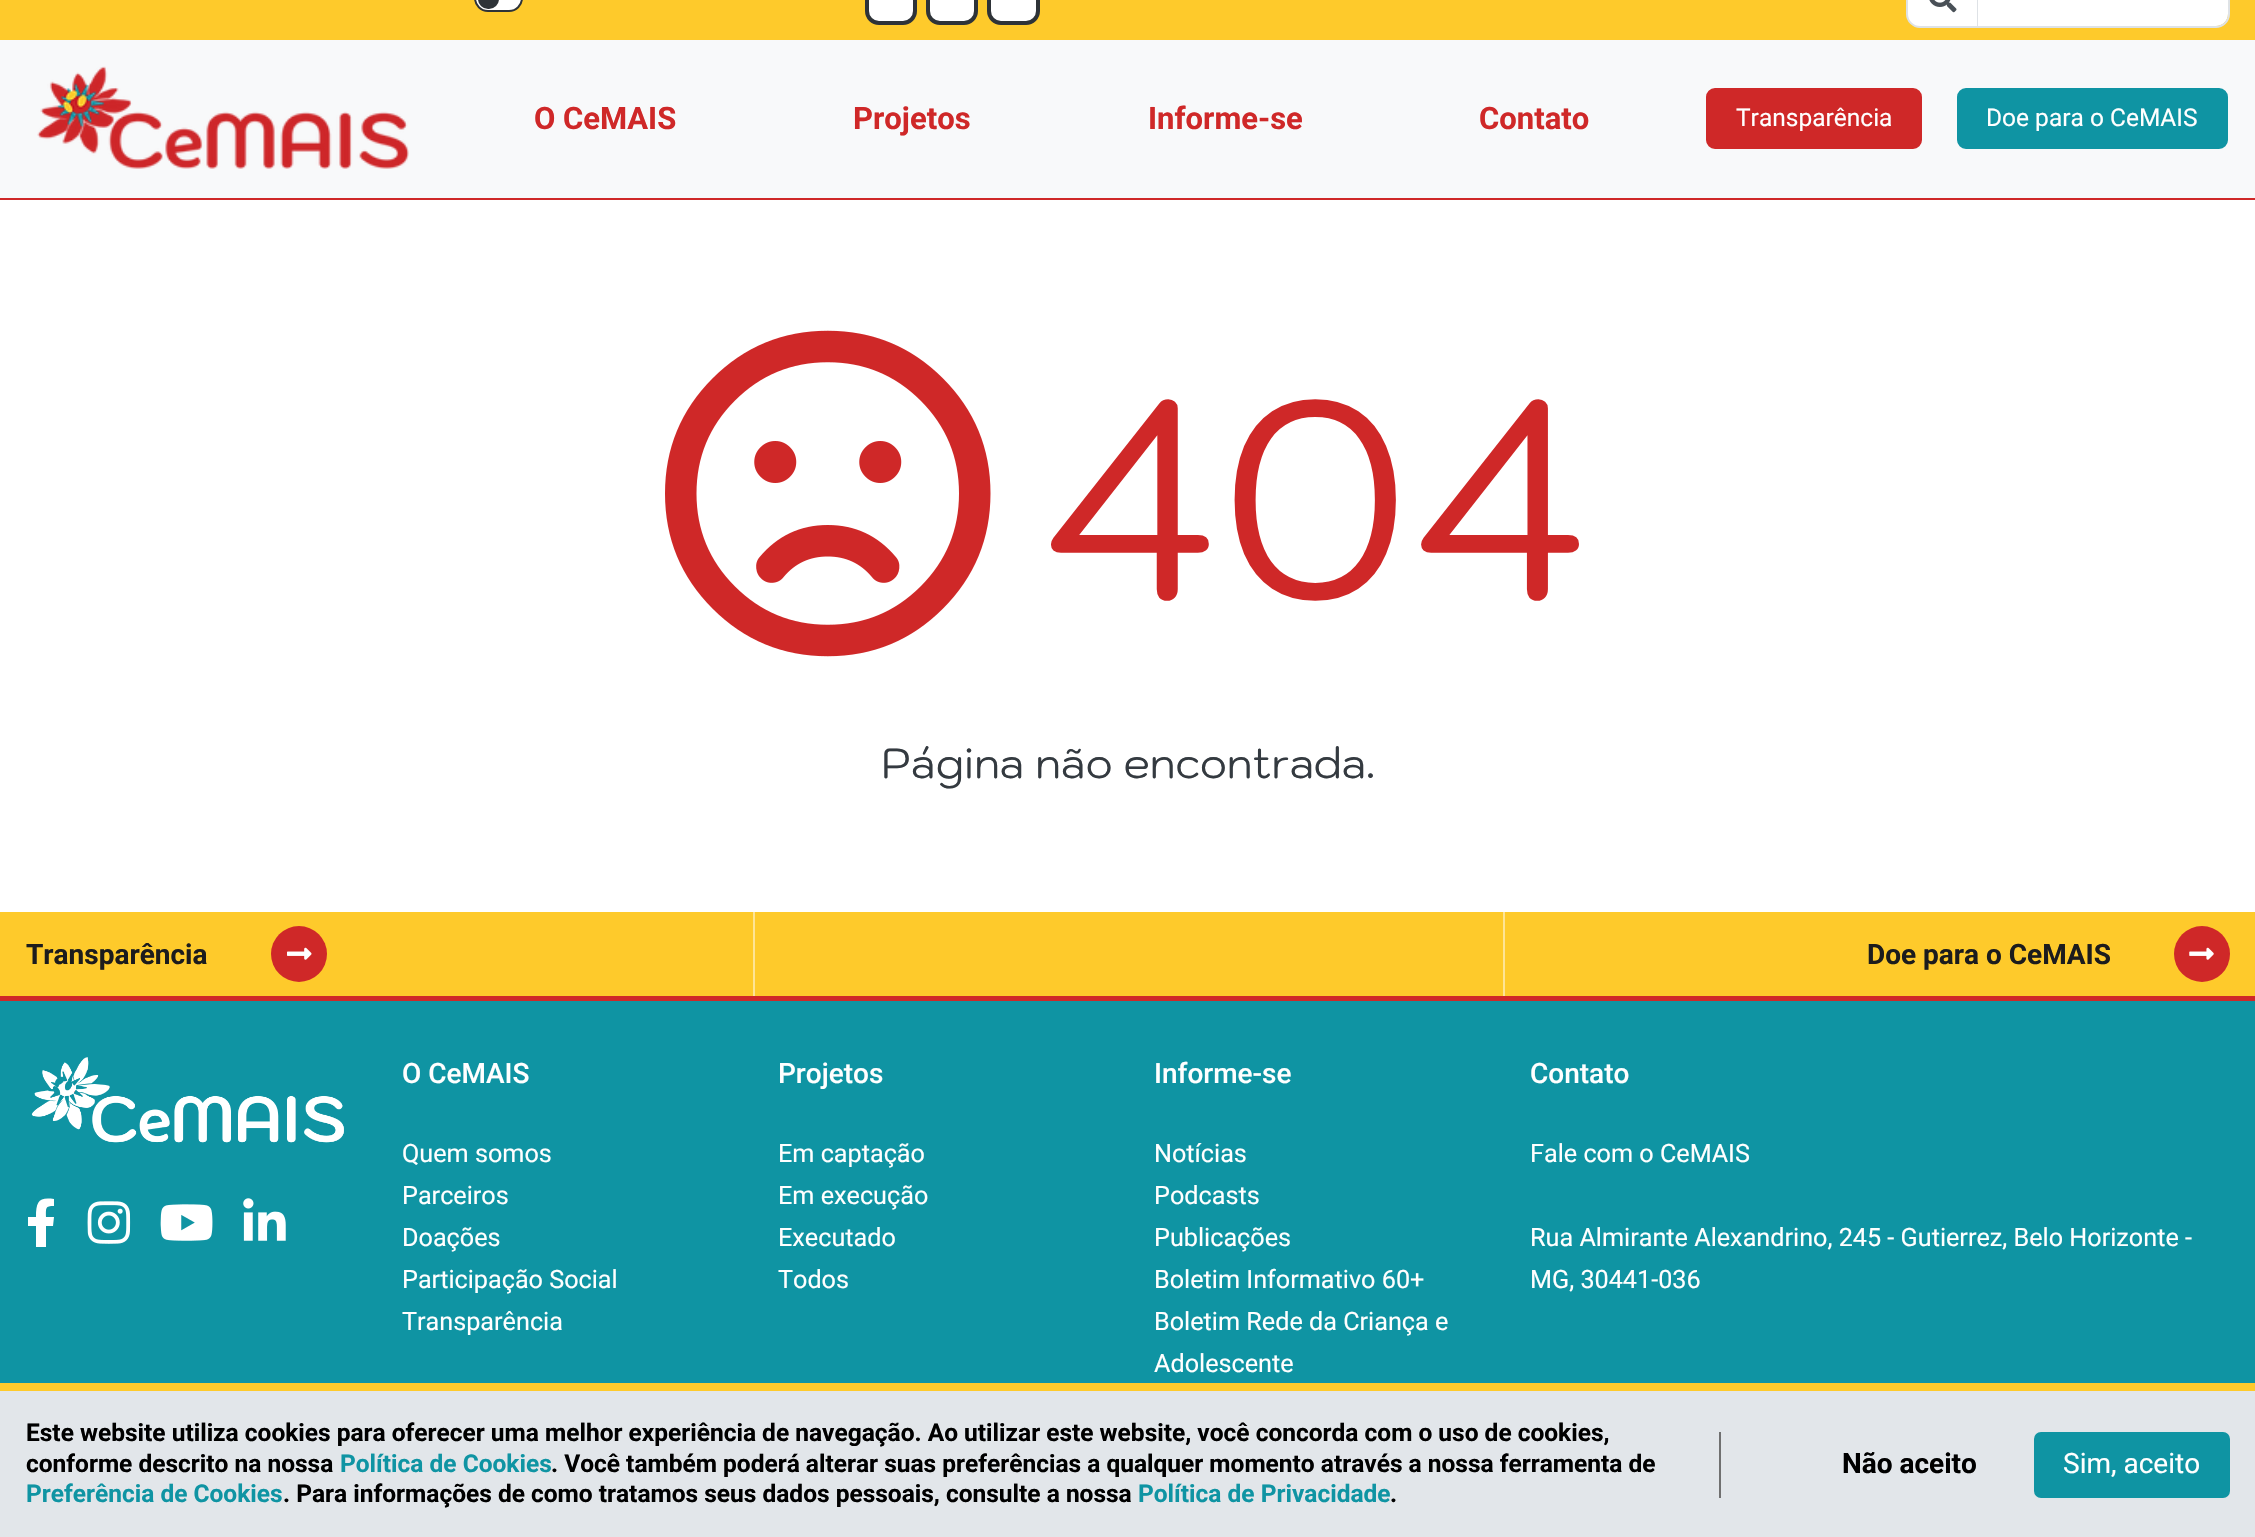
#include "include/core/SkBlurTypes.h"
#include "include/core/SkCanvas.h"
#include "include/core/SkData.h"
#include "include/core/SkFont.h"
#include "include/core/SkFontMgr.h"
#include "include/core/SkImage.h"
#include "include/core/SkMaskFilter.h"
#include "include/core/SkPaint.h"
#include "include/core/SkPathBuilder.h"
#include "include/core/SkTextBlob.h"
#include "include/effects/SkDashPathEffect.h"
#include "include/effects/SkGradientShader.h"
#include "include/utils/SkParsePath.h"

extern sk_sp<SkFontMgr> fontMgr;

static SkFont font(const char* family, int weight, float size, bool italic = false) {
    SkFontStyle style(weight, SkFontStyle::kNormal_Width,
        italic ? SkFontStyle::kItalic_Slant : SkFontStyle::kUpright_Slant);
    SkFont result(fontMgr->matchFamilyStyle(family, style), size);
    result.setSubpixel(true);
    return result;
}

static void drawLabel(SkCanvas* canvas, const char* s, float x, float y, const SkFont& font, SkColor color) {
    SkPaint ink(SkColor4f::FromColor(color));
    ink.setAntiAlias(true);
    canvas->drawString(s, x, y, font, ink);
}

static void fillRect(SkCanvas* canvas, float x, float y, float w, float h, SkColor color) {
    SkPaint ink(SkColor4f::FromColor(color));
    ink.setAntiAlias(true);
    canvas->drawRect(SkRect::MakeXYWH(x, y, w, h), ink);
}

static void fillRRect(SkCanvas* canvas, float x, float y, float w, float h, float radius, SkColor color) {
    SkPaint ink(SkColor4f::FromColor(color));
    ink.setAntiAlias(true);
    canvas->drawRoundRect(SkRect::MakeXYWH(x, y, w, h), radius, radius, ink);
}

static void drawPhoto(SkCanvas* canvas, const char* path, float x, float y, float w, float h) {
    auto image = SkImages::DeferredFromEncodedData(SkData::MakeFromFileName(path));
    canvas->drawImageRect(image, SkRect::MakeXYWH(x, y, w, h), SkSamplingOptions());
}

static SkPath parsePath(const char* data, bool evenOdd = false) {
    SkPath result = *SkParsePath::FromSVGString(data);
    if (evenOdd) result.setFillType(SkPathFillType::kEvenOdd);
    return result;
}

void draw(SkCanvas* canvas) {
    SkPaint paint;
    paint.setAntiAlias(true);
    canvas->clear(0xFFFFFFFF);
    fillRect(canvas, 0, 0, 2255, 40, 0xFFFECA2B);
    paint.setColor(0xFFFFFFFF);
    canvas->drawRoundRect(SkRect::MakeXYWH(475, -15, 47, 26), 13, 13, paint);
    paint.setStroke(true);
    paint.setStrokeWidth(2);
    paint.setColor(0xFF2E3338);
    canvas->drawRoundRect(SkRect::MakeXYWH(475, -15, 47, 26), 13, 13, paint);
    fillRRect(canvas, 478, -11, 21, 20, 10.5f, 0xFF2E3338);
    paint.setStroke(false);
    paint.setColor(0xFFFFFFFF);
    canvas->drawRoundRect(SkRect::MakeXYWH(867, -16, 48, 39), 12, 12, paint);
    paint.setStroke(true);
    paint.setStrokeWidth(4);
    paint.setColor(0xFF2E3338);
    canvas->drawRoundRect(SkRect::MakeXYWH(867, -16, 48, 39), 12, 12, paint);
    paint.setStroke(false);
    paint.setColor(0xFFFFFFFF);
    canvas->drawRoundRect(SkRect::MakeXYWH(928, -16, 48, 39), 12, 12, paint);
    paint.setStroke(true);
    paint.setColor(0xFF2E3338);
    canvas->drawRoundRect(SkRect::MakeXYWH(928, -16, 48, 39), 12, 12, paint);
    paint.setStroke(false);
    paint.setColor(0xFFFFFFFF);
    canvas->drawRoundRect(SkRect::MakeXYWH(989, -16, 49, 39), 12, 12, paint);
    paint.setStroke(true);
    paint.setColor(0xFF2E3338);
    canvas->drawRoundRect(SkRect::MakeXYWH(989, -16, 49, 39), 12, 12, paint);
    paint.setStroke(false);
    paint.setColor(0xFFFFFFFF);
    canvas->drawPath(parsePath("M1920-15H1978V27H1920C1913 27 1907 21 1907 14V-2C1907-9 1913-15 1920-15Z"), paint);
    paint.setStroke(true);
    paint.setStrokeWidth(2);
    paint.setColor(0xFFDEE2E6);
    canvas->drawPath(parsePath("M1920-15H1978V27H1920C1913 27 1907 21 1907 14V-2C1907-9 1913-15 1920-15Z"), paint);
    drawPhoto(canvas, "assets/img1.png", 1929, 0, 28, 13);
    paint.setStroke(false);
    paint.setColor(0xFFFFFFFF);
    canvas->drawPath(parsePath("M1978-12H2216C2222.5-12 2228-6.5 2228 0V14C2228 20.5 2222.5 26 2216 26H1978Z"), paint);
    paint.setColor(0xFFDEE2E6);
    canvas->drawPath(parsePath("M1978-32H2216C2223-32 2230-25 2230-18V14C2230 22 2223 28 2216 28H1978ZM1978-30H2216C2222-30 2228-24 2228-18V14C2228 21 2222 26 2216 26H1978Z", true), paint);
    fillRect(canvas, 0, 40, 2255, 158, 0xFFF8F9FA);
    fillRect(canvas, 0, 198, 2255, 2, 0xFFCF2828);
    drawPhoto(canvas, "assets/img2.png", 37, 66, 372, 103);
    SkFont font1 = font("Roboto", 700, 31);
    drawLabel(canvas, "O CeMAIS", 534, 129, font1, 0xFFCF2828);
    drawLabel(canvas, "Projetos", 853, 129, font1, 0xFFCF2828);
    drawLabel(canvas, "Informe-se", 1148, 129, font1, 0xFFCF2828);
    drawLabel(canvas, "Contato", 1479, 129, font1, 0xFFCF2828);
    paint.setColor(0xFFCF2828);
    canvas->drawRoundRect(SkRect::MakeXYWH(1707, 89, 214, 59), 8, 8, paint);
    paint.setStroke(true);
    canvas->drawRoundRect(SkRect::MakeXYWH(1707, 89, 214, 59), 8, 8, paint);
    SkFont font2 = font("Roboto", 400, 24.5f);
    drawLabel(canvas, "Transparência", 1736, 126, font2, 0xFFFFFFFF);
    paint.setStroke(false);
    paint.setColor(0xFF0F94A3);
    canvas->drawRoundRect(SkRect::MakeXYWH(1958, 89, 269, 59), 8, 8, paint);
    paint.setStroke(true);
    canvas->drawRoundRect(SkRect::MakeXYWH(1958, 89, 269, 59), 8, 8, paint);
    drawLabel(canvas, "Doe para o CeMAIS", 1986, 126, font2, 0xFFFFFFFF);
    drawPhoto(canvas, "assets/img3.png", 665, 330, 326, 327);
    SkFont font3 = font("Kodchasan", 400, 280);
    drawLabel(canvas, "404", 1040, 598, font3, 0xFFCF2828);
    SkFont font4 = font("Kodchasan", 400, 42);
    drawLabel(canvas, "Página não encontrada.", 881, 778, font4, 0xFF343A40);
    fillRect(canvas, 0, 912, 2255, 84, 0xFFFECA2B);
    fillRect(canvas, 0, 996, 2255, 5, 0xFFCF2828);
    SkFont font5 = font("Roboto", 700, 28);
    drawLabel(canvas, "Transparência", 26, 964, font5, 0xFF1C1C1D);
    paint.setStroke(false);
    paint.setColor(0xFFCF2828);
    canvas->drawCircle(299, 954, 28, paint);
    drawPhoto(canvas, "assets/img4.png", 287, 947, 25, 13);
    fillRect(canvas, 753, 912, 2, 84, 0xFFFEE495);
    fillRect(canvas, 1503, 912, 2, 84, 0xFFFEE495);
    drawLabel(canvas, "Doe para o CeMAIS", 1867, 964, font5, 0xFF1C1C1D);
    canvas->drawCircle(2202, 954, 28, paint);
    drawPhoto(canvas, "assets/img5.png", 2189, 947, 25, 13);
    fillRect(canvas, 0, 1001, 2255, 382, 0xFF0F94A3);
    drawPhoto(canvas, "assets/img6.png", 31, 1057, 313, 86);
    paint.setColor(0xFFFFFFFF);
    canvas->drawPath(parsePath("M53 1226H46V1247H36V1226H28V1217H36C36 1201 39 1197 54 1199V1206C45 1206 46 1208 46 1217H54Z"), paint);
    drawPhoto(canvas, "assets/img7.png", 87, 1201, 44, 43);
    drawPhoto(canvas, "assets/img8.png", 160, 1204, 53, 37);
    drawPhoto(canvas, "assets/img9.png", 243, 1198, 43, 43);
    SkFont font6 = font("Roboto", 500, 28);
    drawLabel(canvas, "O CeMAIS", 402, 1083, font6, 0xFFFFFFFF);
    SkFont font7 = font("Roboto", 400, 25.2f);
    drawLabel(canvas, "Quem somos", 402, 1162, font7, 0xFFFFFFFF);
    drawLabel(canvas, "Parceiros", 402, 1204, font7, 0xFFFFFFFF);
    drawLabel(canvas, "Doações", 402, 1246, font7, 0xFFFFFFFF);
    drawLabel(canvas, "Participação Social", 402, 1288, font7, 0xFFFFFFFF);
    drawLabel(canvas, "Transparência", 402, 1330, font7, 0xFFFFFFFF);
    drawLabel(canvas, "Projetos", 778, 1083, font6, 0xFFFFFFFF);
    drawLabel(canvas, "Em captação", 778, 1162, font7, 0xFFFFFFFF);
    drawLabel(canvas, "Em execução", 778, 1204, font7, 0xFFFFFFFF);
    drawLabel(canvas, "Executado", 778, 1246, font7, 0xFFFFFFFF);
    drawLabel(canvas, "Todos", 778, 1288, font7, 0xFFFFFFFF);
    drawLabel(canvas, "Informe-se", 1154, 1083, font6, 0xFFFFFFFF);
    drawLabel(canvas, "Notícias", 1154, 1162, font7, 0xFFFFFFFF);
    drawLabel(canvas, "Podcasts", 1154, 1204, font7, 0xFFFFFFFF);
    drawLabel(canvas, "Publicações", 1154, 1246, font7, 0xFFFFFFFF);
    drawLabel(canvas, "Boletim Informativo 60+", 1154, 1288, font7, 0xFFFFFFFF);
    drawLabel(canvas, "Boletim Rede da Criança e", 1154, 1330, font7, 0xFFFFFFFF);
    drawLabel(canvas, "Adolescente", 1154, 1372, font7, 0xFFFFFFFF);
    drawLabel(canvas, "Contato", 1530, 1083, font6, 0xFFFFFFFF);
    drawLabel(canvas, "Fale com o CeMAIS", 1530, 1162, font7, 0xFFFFFFFF);
    drawLabel(canvas, "Rua Almirante Alexandrino, 245 - Gutierrez, Belo Horizonte -", 1530, 1246, font7, 0xFFFFFFFF);
    drawLabel(canvas, "MG, 30441-036", 1530, 1288, font7, 0xFFFFFFFF);
    fillRect(canvas, 0, 1391, 2255, 146, 0xFFE2E6EA);
    fillRect(canvas, 0, 1383, 2255, 8, 0xFFFECA2B);
    SkFont font8 = font("Roboto", 700, 24.5f);
    drawLabel(canvas, "Este website utiliza cookies para oferecer uma melhor experiência de navegação. Ao utilizar este website, você concorda com o uso de cookies,", 26, 1441, font8, 0xFF000000);
    drawLabel(canvas, "conforme descrito na nossa", 26, 1472, font8, 0xFF000000);
    drawLabel(canvas, "Política de Cookies", 340, 1472, font8, 0xFF0F94A3);
    drawLabel(canvas, ". Você também poderá alterar suas preferências a qualquer momento através a nossa ferramenta de", 551, 1472, font8, 0xFF000000);
    drawLabel(canvas, "Preferência de Cookies", 26, 1502, font8, 0xFF0F94A3);
    drawLabel(canvas, ". Para informações de como tratamos seus dados pessoais, consulte a nossa", 283, 1502, font8, 0xFF000000);
    drawLabel(canvas, "Política de Privacidade", 1138, 1502, font8, 0xFF0F94A3);
    drawLabel(canvas, ".", 1390, 1502, font8, 0xFF000000);
    fillRect(canvas, 1719, 1432, 2, 66, 0xFF707070);
    drawLabel(canvas, "Não aceito", 1842, 1473, font5, 0xFF000000);
    paint.setColor(0xFF0F94A3);
    canvas->drawRoundRect(SkRect::MakeXYWH(2035, 1433, 194, 64), 6, 6, paint);
    paint.setStroke(true);
    canvas->drawRoundRect(SkRect::MakeXYWH(2035, 1433, 194, 64), 6, 6, paint);
    SkFont font9 = font("Roboto", 400, 28);
    drawLabel(canvas, "Sim, aceito", 2063, 1473, font9, 0xFFFFFFFF);
}
